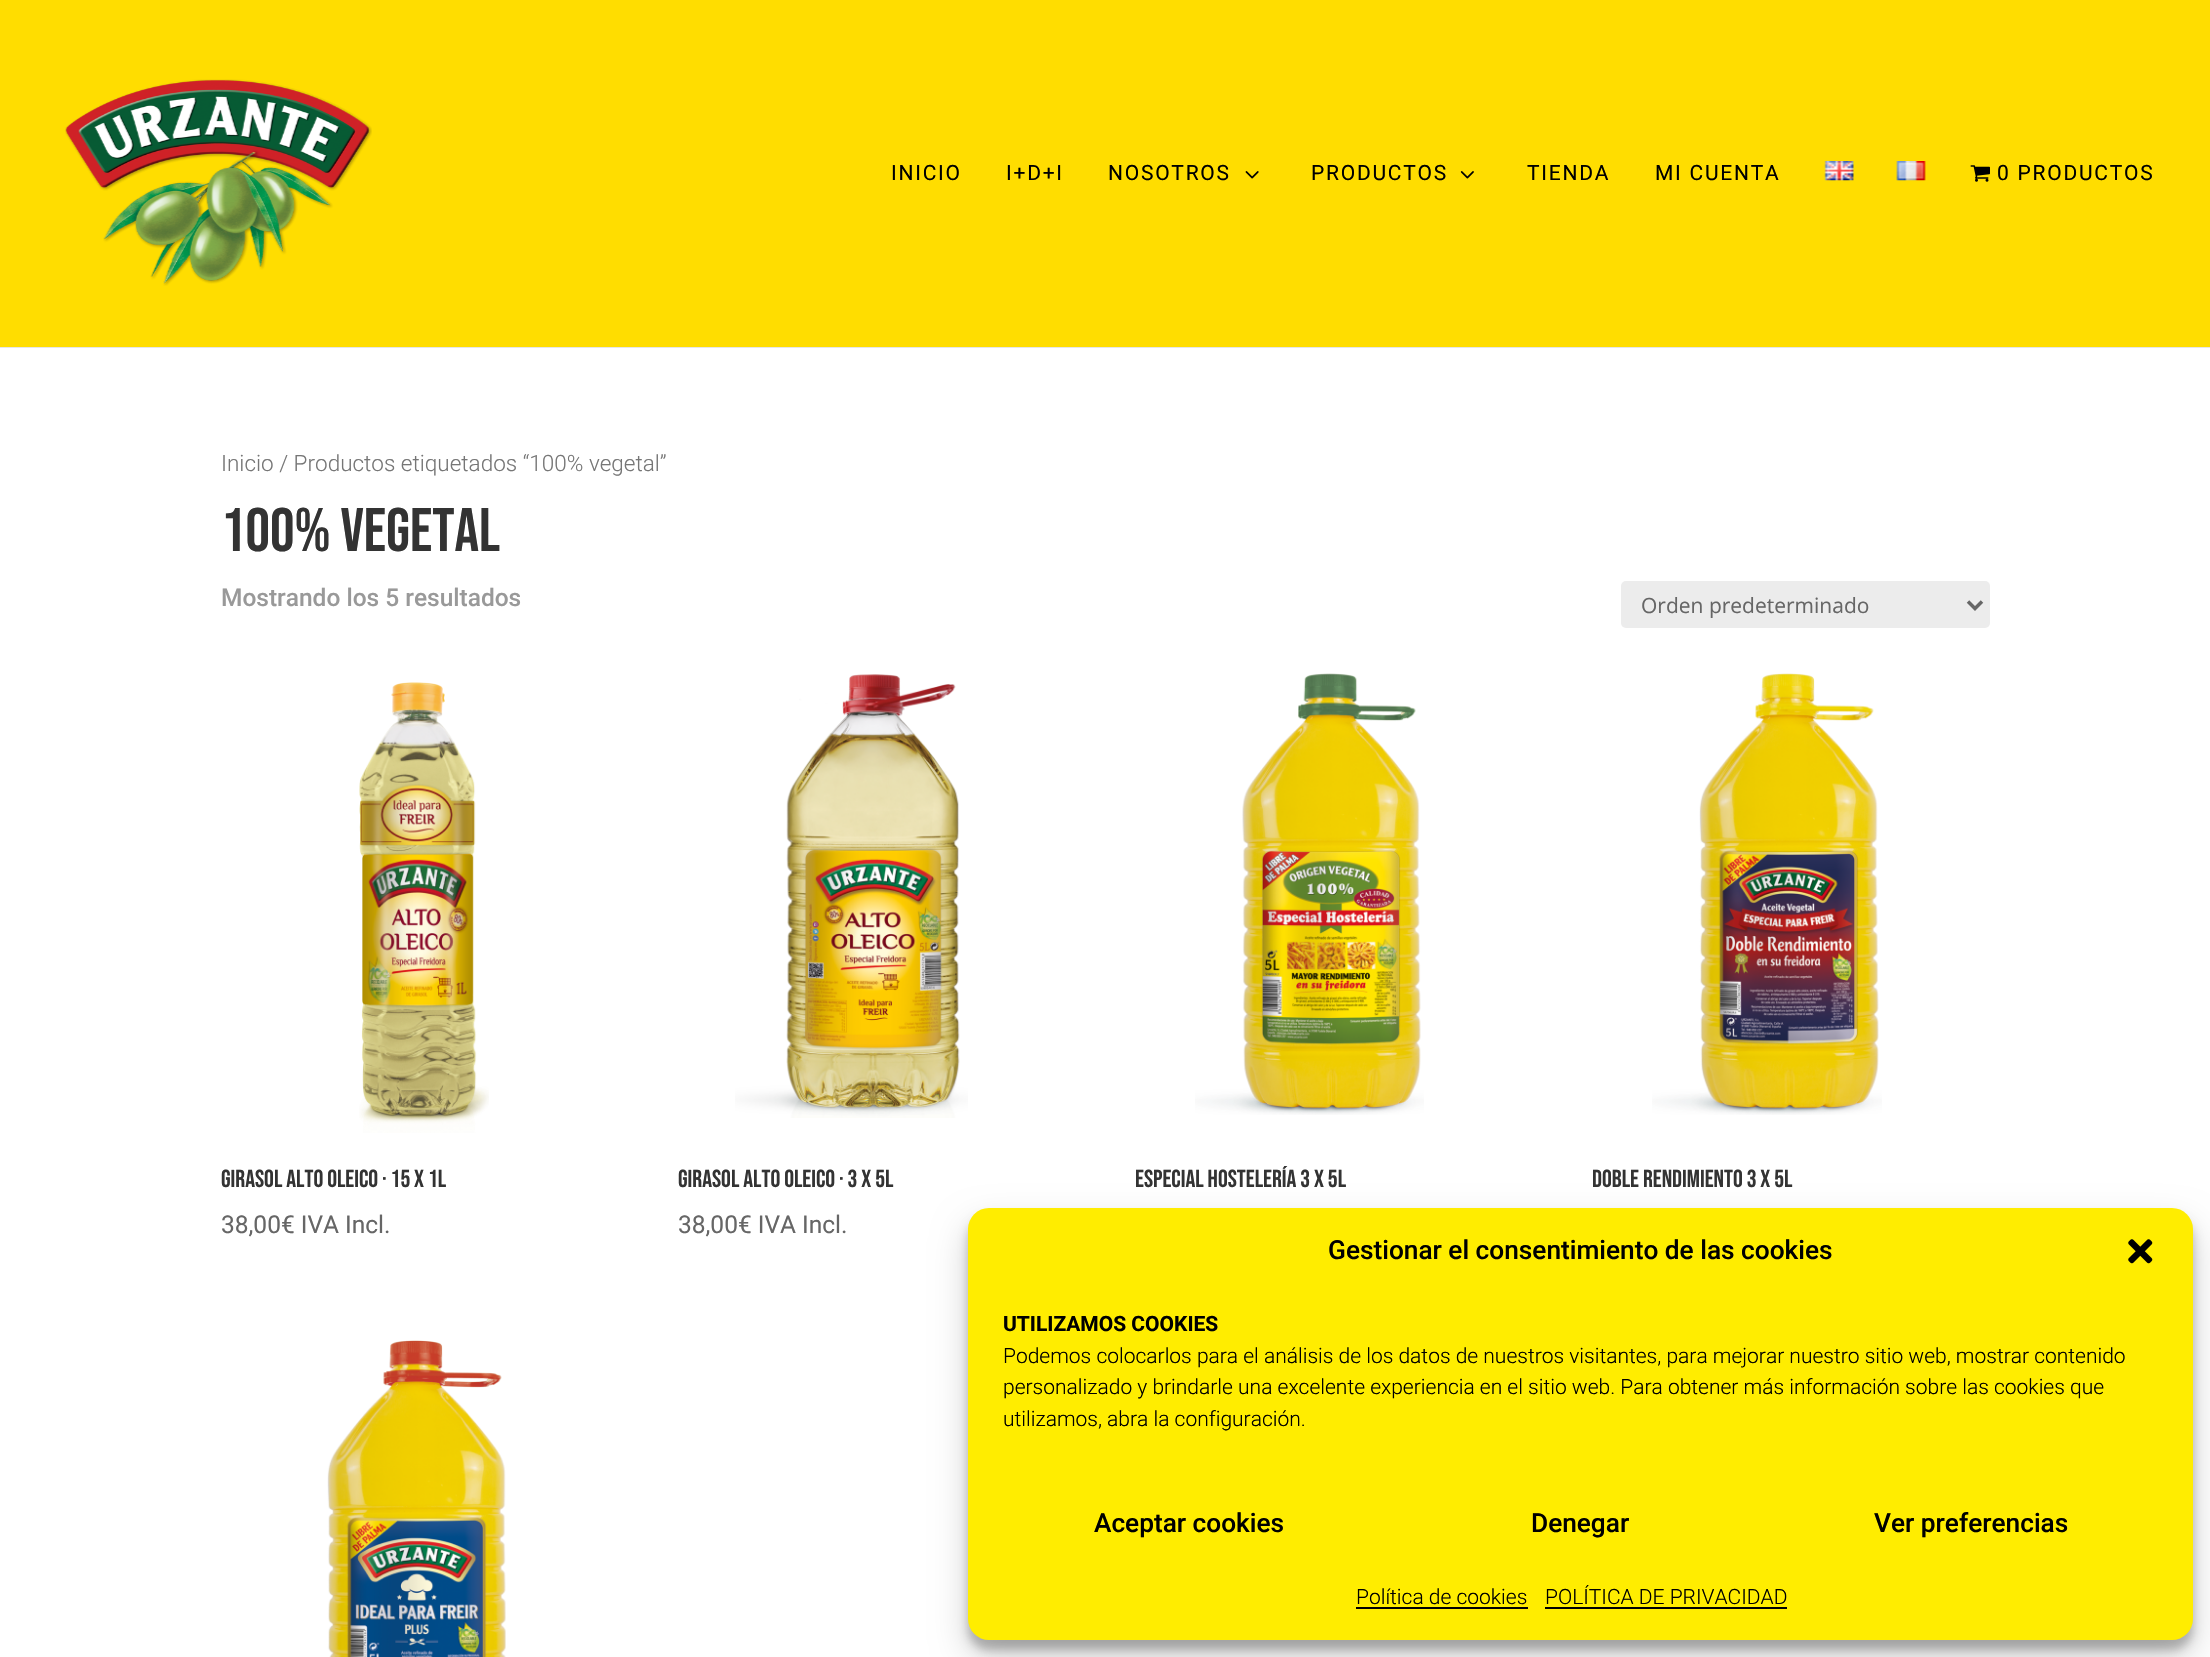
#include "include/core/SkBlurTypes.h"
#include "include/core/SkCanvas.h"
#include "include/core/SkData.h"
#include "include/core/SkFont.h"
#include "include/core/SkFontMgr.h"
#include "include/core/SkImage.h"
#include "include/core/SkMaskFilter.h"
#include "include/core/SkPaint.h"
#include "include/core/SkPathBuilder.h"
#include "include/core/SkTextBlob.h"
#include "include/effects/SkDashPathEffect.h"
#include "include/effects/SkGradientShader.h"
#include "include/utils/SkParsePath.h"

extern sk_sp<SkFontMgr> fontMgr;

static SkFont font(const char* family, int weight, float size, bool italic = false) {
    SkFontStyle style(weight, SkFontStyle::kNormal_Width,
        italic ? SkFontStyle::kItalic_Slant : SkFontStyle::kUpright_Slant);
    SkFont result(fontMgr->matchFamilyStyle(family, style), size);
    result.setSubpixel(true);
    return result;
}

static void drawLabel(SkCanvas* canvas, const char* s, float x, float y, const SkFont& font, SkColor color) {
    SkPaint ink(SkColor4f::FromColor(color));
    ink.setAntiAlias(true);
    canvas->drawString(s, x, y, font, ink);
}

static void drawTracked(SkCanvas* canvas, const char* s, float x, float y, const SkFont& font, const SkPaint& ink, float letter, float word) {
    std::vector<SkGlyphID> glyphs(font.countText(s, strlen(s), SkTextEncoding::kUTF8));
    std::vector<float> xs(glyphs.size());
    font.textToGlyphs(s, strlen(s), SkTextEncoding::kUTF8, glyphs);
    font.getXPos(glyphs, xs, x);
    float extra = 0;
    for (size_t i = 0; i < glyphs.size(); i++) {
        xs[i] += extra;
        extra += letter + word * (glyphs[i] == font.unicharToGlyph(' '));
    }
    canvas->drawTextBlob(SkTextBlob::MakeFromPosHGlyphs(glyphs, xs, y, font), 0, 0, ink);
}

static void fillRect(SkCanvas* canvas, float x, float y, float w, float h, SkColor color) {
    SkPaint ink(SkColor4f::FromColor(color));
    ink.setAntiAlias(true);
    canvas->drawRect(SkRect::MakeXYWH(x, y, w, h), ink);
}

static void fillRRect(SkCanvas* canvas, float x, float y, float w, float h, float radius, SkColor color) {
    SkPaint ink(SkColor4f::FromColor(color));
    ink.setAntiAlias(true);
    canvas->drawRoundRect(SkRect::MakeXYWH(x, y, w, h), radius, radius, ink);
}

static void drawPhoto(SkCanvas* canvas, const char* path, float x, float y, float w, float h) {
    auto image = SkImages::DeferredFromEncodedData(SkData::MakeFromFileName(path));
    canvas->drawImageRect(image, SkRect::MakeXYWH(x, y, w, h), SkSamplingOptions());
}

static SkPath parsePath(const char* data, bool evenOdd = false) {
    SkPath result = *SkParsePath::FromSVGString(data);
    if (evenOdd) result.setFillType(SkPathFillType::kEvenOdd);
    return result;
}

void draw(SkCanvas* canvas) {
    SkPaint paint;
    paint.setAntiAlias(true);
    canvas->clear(0xFFFFFFFF);
    fillRect(canvas, 0, 0, 2210, 347, 0xFFFFDD00);
    drawPhoto(canvas, "assets/img1.png", 65, 79, 307, 207);
    SkFont font1 = font("Roboto", 400, 21);
    paint.setColor(0xFF000000);
    drawTracked(canvas, "INICIO", 891, 180, font1, paint, 1.75f, 0);
    drawTracked(canvas, "I+D+I", 1006, 180, font1, paint, 1.75f, 0);
    drawTracked(canvas, "NOSOTROS", 1108, 180, font1, paint, 1.75f, 0);
    drawPhoto(canvas, "assets/img2.png", 1245, 171, 14, 8);
    drawTracked(canvas, "PRODUCTOS", 1311, 180, font1, paint, 1.75f, 0);
    drawPhoto(canvas, "assets/img3.png", 1460, 171, 14, 8);
    drawTracked(canvas, "TIENDA", 1527, 180, font1, paint, 1.75f, 0);
    drawTracked(canvas, "MI CUENTA", 1655, 180, font1, paint, 1.75f, 0);
    drawPhoto(canvas, "assets/img4.png", 1824, 161, 30, 20);
    drawPhoto(canvas, "assets/img5.png", 1896, 161, 30, 20);
    drawPhoto(canvas, "assets/img6.png", 1970, 165, 20, 17);
    drawTracked(canvas, "0 PRODUCTOS", 1997, 180, font1, paint, 1.75f, 0);
    fillRect(canvas, 0, 347, 2210, 1, 0xFFE6E6E6);
    SkFont font2 = font("Roboto", 300, 22.5f);
    drawLabel(canvas, "Inicio / Productos etiquetados “100% vegetal”", 221, 471, font2, 0xFF767676);
    SkFont font3 = font("Bebas Neue", 400, 61.25f);
    drawLabel(canvas, "100% vegetal", 221, 551, font3, 0xFF333333);
    SkFont font4 = font("Roboto", 500, 24.5f);
    drawLabel(canvas, "Mostrando los 5 resultados", 221, 606, font4, 0xFF999999);
    fillRRect(canvas, 1621, 581, 369, 47, 5, 0xFFECECEC);
    paint.setStroke(true);
    paint.setStrokeWidth(3.5f);
    paint.setColor(0xFF666666);
    canvas->drawPath(parsePath("M1968 601.5L1975 608.5L1982 601.5"), paint);
    SkFont font5 = font("Open Sans", 400, 21);
    drawLabel(canvas, "Orden predeterminado", 1641, 613, font5, 0xFF666666);
    drawPhoto(canvas, "assets/img7.png", 359, 682, 130, 451);
    SkFont font6 = font("Bebas Neue", 400, 24.5f);
    drawLabel(canvas, "Girasol Alto Oleico · 15 x 1L", 221, 1187, font6, 0xFF333333);
    SkFont font7 = font("Roboto", 400, 24.5f);
    drawLabel(canvas, "38,00€ IVA Incl.", 221, 1233, font7, 0xFF666666);
    drawPhoto(canvas, "assets/img8.png", 735, 674, 233, 444);
    drawLabel(canvas, "Girasol Alto Oleico · 3 x 5L", 678, 1187, font6, 0xFF333333);
    drawLabel(canvas, "38,00€ IVA Incl.", 678, 1233, font7, 0xFF666666);
    drawPhoto(canvas, "assets/img9.png", 1195, 673, 229, 442);
    drawLabel(canvas, "Especial Hostelería 3 x 5L", 1135, 1187, font6, 0xFF333333);
    drawPhoto(canvas, "assets/img10.png", 1652, 673, 230, 442);
    drawLabel(canvas, "Doble Rendimiento 3 x 5L", 1592, 1187, font6, 0xFF333333);
    drawPhoto(canvas, "assets/img11.png", 327, 1340, 179, 317);
    paint.setStroke(false);
    paint.setColor(0x3B000000);
    paint.setMaskFilter(SkMaskFilter::MakeBlur(kNormal_SkBlurStyle, 5));
    canvas->drawRoundRect(SkRect::MakeXYWH(968, 1218, 1225, 432), 21, 21, paint);
    paint.setMaskFilter(nullptr);
    paint.setColor(0x30000000);
    paint.setMaskFilter(SkMaskFilter::MakeBlur(kNormal_SkBlurStyle, 17.5f));
    canvas->drawRoundRect(SkRect::MakeXYWH(968, 1225, 1225, 432), 21, 21, paint);
    paint.setMaskFilter(nullptr);
    fillRRect(canvas, 968, 1208, 1225, 432, 21, 0xFFFFED00);
    SkFont font8 = font("Roboto", 500, 26.25f);
    drawLabel(canvas, "Gestionar el consentimiento de las cookies", 1328, 1259, font8, 0xFF000000);
    drawPhoto(canvas, "assets/img12.png", 2128, 1239, 25, 25);
    SkFont font9 = font("Roboto", 700, 21);
    drawLabel(canvas, "UTILIZAMOS COOKIES", 1003, 1331, font9, 0xFF000000);
    SkFont font10 = font("Roboto", 300, 21);
    drawLabel(canvas, "Podemos colocarlos para el análisis de los datos de nuestros visitantes, para mejorar nuestro sitio web, mostrar contenido", 1003, 1363, font10, 0xFF000000);
    drawLabel(canvas, "personalizado y brindarle una excelente experiencia en el sitio web. Para obtener más información sobre las cookies que", 1003, 1394, font10, 0xFF000000);
    drawLabel(canvas, "utilizamos, abra la configuración.", 1003, 1426, font10, 0xFF000000);
    drawLabel(canvas, "Aceptar cookies", 1094, 1532, font8, 0xFF000000);
    drawLabel(canvas, "Denegar", 1531, 1532, font8, 0xFF000000);
    drawLabel(canvas, "Ver preferencias", 1874, 1532, font8, 0xFF000000);
    drawLabel(canvas, "Política de cookies", 1356, 1604, font10, 0xFF000000);
    fillRect(canvas, 1356, 1607, 172, 2, 0xFF000000);
    drawLabel(canvas, "POLÍTICA DE PRIVACIDAD", 1545, 1604, font10, 0xFF000000);
    fillRect(canvas, 1545, 1607, 242, 2, 0xFF000000);
}
